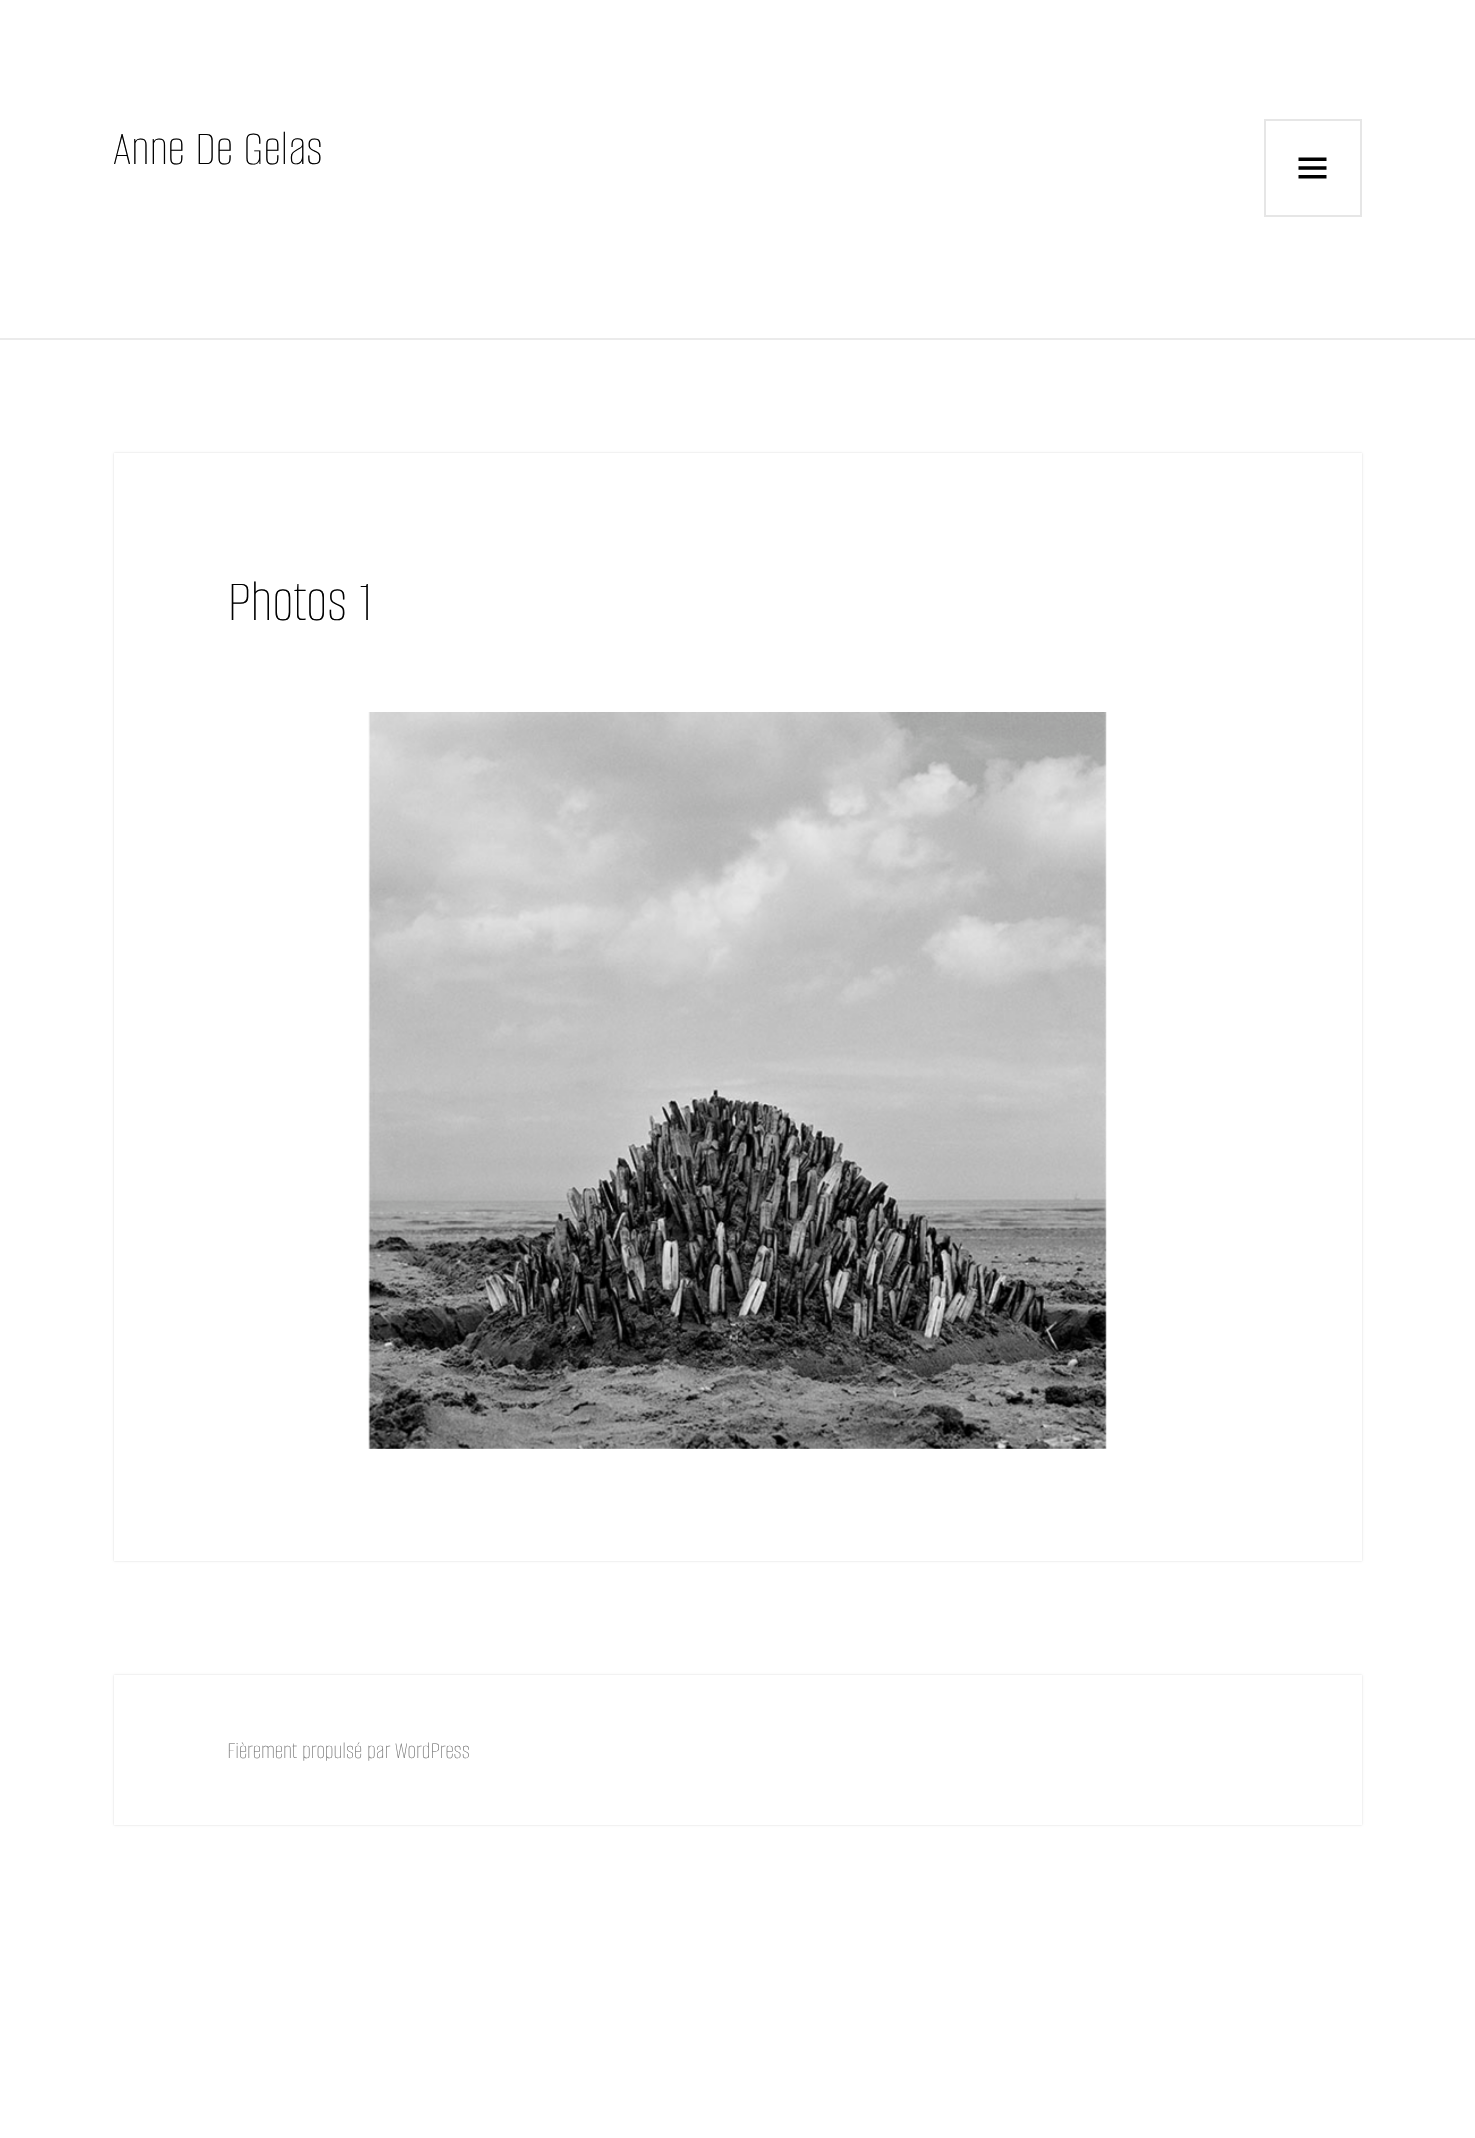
#include "include/core/SkBlurTypes.h"
#include "include/core/SkCanvas.h"
#include "include/core/SkData.h"
#include "include/core/SkFont.h"
#include "include/core/SkFontMgr.h"
#include "include/core/SkImage.h"
#include "include/core/SkMaskFilter.h"
#include "include/core/SkPaint.h"
#include "include/core/SkPathBuilder.h"
#include "include/core/SkTextBlob.h"
#include "include/effects/SkDashPathEffect.h"
#include "include/effects/SkGradientShader.h"
#include "include/utils/SkParsePath.h"

extern sk_sp<SkFontMgr> fontMgr;

static SkFont font(const char* family, int weight, float size, bool italic = false) {
    SkFontStyle style(weight, SkFontStyle::kNormal_Width,
        italic ? SkFontStyle::kItalic_Slant : SkFontStyle::kUpright_Slant);
    SkFont result(fontMgr->matchFamilyStyle(family, style), size);
    result.setSubpixel(true);
    return result;
}

static void drawLabel(SkCanvas* canvas, const char* s, float x, float y, const SkFont& font, SkColor color) {
    SkPaint ink(SkColor4f::FromColor(color));
    ink.setAntiAlias(true);
    canvas->drawString(s, x, y, font, ink);
}

static void fillRect(SkCanvas* canvas, float x, float y, float w, float h, SkColor color) {
    SkPaint ink(SkColor4f::FromColor(color));
    ink.setAntiAlias(true);
    canvas->drawRect(SkRect::MakeXYWH(x, y, w, h), ink);
}

static void drawPhoto(SkCanvas* canvas, const char* path, float x, float y, float w, float h) {
    auto image = SkImages::DeferredFromEncodedData(SkData::MakeFromFileName(path));
    canvas->drawImageRect(image, SkRect::MakeXYWH(x, y, w, h), SkSamplingOptions());
}

void draw(SkCanvas* canvas) {
    SkPaint paint;
    paint.setAntiAlias(true);
    canvas->clear(0xFFFFFFFF);
    fillRect(canvas, 0, 338, 1475, 2, 0xFFEBEBEB);
    SkFont font1 = font("Alumni Sans", 100, 50.75f);
    drawLabel(canvas, "Anne De Gelas", 113, 164, font1, 0xFF000000);
    paint.setStroke(true);
    paint.setStrokeWidth(2);
    paint.setColor(0xFFE6E6E6);
    canvas->drawRect(SkRect::MakeXYWH(1265, 120, 96, 96), paint);
    drawPhoto(canvas, "assets/img1.png", 1298, 157, 29, 22);
    paint.setStroke(false);
    paint.setColor(0x26000000);
    paint.setMaskFilter(SkMaskFilter::MakeBlur(kNormal_SkBlurStyle, 1));
    canvas->drawRect(SkRect::MakeXYWH(114, 453, 1248, 1108), paint);
    paint.setMaskFilter(nullptr);
    fillRect(canvas, 114, 453, 1248, 1108, 0xFFFFFFFF);
    SkFont font2 = font("Alumni Sans", 100, 61);
    drawLabel(canvas, "Photos 1", 227, 620, font2, 0xFF000000);
    drawPhoto(canvas, "assets/img2.png", 368, 712, 739, 737);
    paint.setMaskFilter(SkMaskFilter::MakeBlur(kNormal_SkBlurStyle, 1));
    canvas->drawRect(SkRect::MakeXYWH(114, 1675, 1248, 150), paint);
    paint.setMaskFilter(nullptr);
    fillRect(canvas, 114, 1675, 1248, 150, 0xFFFFFFFF);
    SkFont font3 = font("Alumni Sans", 100, 24.5f);
    drawLabel(canvas, "Fièrement propulsé par WordPress", 227, 1758, font3, 0xFF707070);
}
